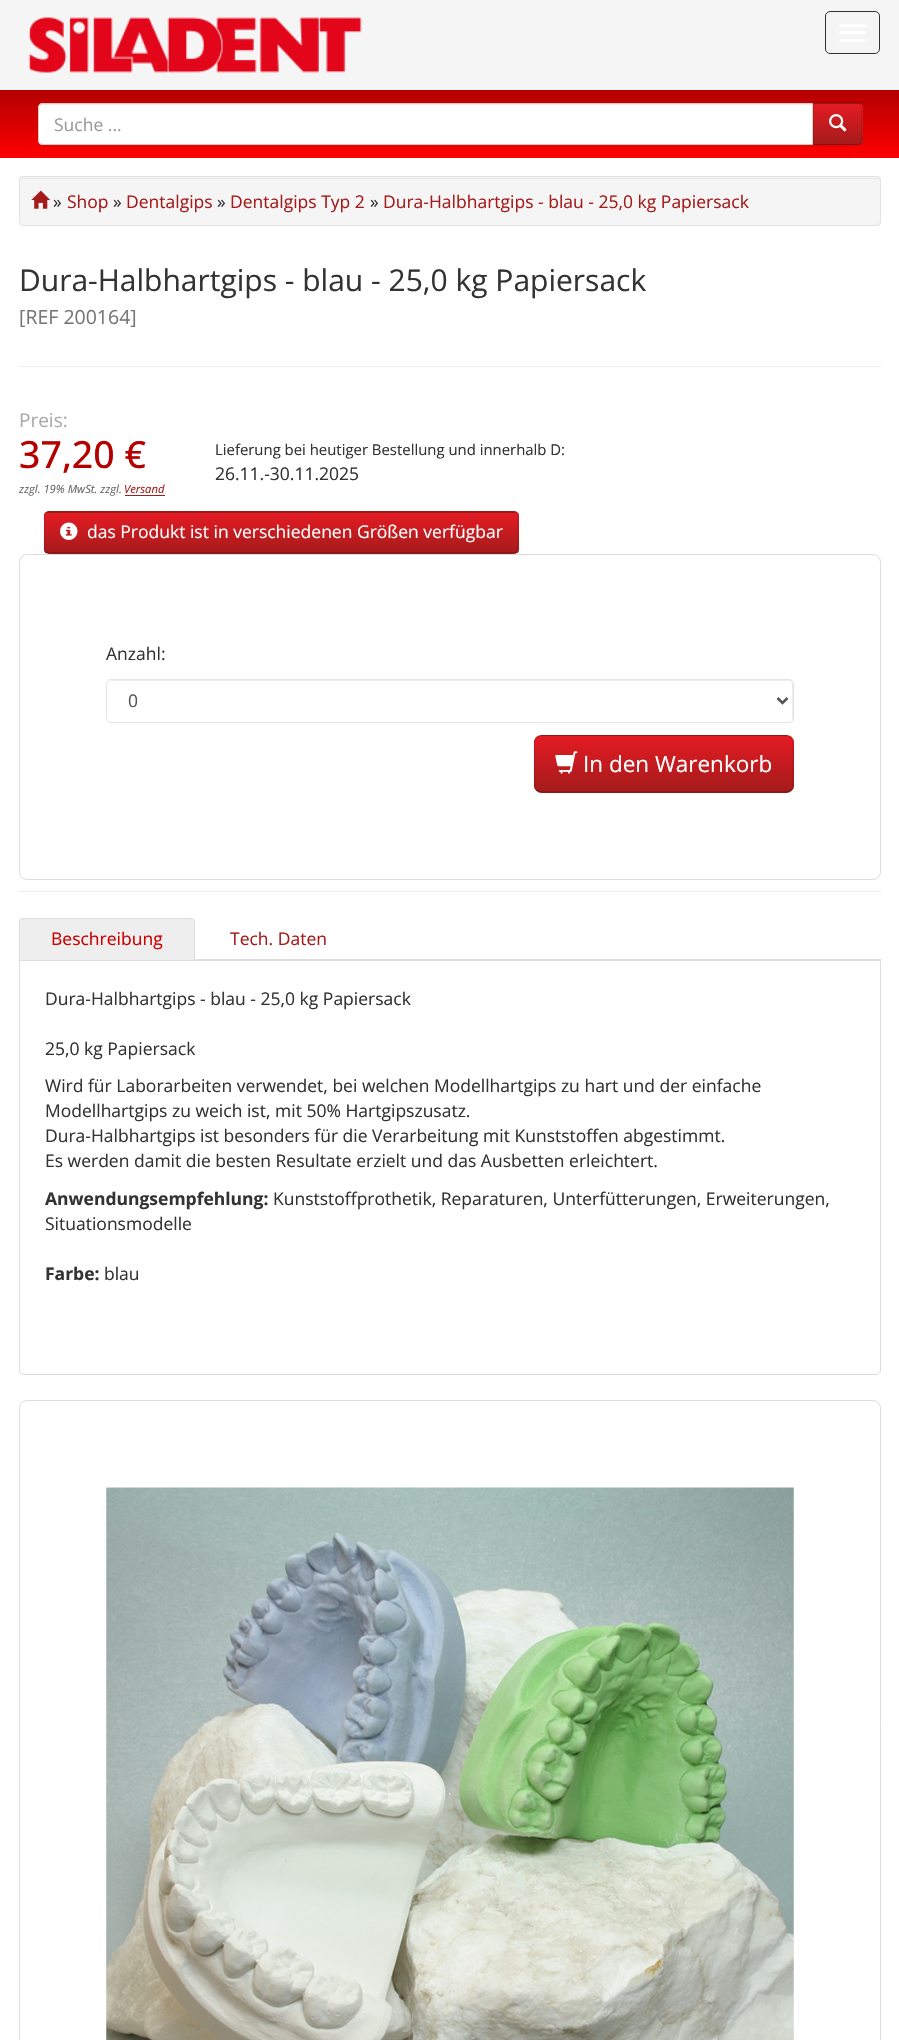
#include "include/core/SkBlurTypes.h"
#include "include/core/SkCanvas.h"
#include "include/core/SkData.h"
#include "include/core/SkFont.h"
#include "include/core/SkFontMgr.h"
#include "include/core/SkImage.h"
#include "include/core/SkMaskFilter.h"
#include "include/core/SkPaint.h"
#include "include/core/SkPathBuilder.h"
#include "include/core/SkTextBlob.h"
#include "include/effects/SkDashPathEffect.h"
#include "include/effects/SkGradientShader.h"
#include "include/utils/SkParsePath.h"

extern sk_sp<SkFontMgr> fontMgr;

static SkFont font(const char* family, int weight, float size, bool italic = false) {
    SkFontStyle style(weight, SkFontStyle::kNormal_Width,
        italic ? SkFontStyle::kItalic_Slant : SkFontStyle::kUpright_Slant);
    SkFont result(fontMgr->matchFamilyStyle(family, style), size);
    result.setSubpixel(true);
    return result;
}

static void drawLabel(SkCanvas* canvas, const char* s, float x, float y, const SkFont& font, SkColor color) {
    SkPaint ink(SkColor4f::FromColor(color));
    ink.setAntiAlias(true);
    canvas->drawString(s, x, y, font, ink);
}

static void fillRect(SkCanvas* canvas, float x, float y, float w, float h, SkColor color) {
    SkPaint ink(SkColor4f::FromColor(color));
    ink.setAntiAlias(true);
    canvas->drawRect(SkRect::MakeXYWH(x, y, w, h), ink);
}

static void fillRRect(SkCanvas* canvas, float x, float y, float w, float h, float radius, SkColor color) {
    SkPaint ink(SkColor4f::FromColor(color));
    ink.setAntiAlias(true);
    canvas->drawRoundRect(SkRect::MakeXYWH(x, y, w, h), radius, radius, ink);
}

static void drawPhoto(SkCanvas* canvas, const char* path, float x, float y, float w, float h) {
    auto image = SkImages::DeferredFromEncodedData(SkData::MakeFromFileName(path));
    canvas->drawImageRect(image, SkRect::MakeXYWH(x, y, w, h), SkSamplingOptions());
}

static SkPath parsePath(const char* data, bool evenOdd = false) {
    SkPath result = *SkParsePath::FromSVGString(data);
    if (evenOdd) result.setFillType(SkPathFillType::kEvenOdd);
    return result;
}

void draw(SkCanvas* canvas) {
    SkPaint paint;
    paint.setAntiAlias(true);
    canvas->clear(0xFFFFFFFF);
    fillRect(canvas, 0, 0, 899, 90, 0xFFF5F5F5);
    drawPhoto(canvas, "assets/img1.png", 28, 17, 334, 56);
    paint.setStroke(true);
    paint.setStrokeWidth(1);
    paint.setColor(0xFF333333);
    canvas->drawRoundRect(SkRect::MakeXYWH(825.5f, 11.5f, 54, 42), 4.5f, 4.5f, paint);
    fillRRect(canvas, 839, 24, 27, 3, 1.5f, 0xFFFFFFFF);
    fillRRect(canvas, 839, 31, 27, 3, 1.5f, 0xFFFFFFFF);
    fillRRect(canvas, 839, 39, 27, 3, 1.5f, 0xFFFFFFFF);
    paint.setStroke(false);
    {
        const SkColor colors[] = {0xFFFF0000, 0xFFB30000};
        const float stops[] = {0, 1};
        const SkPoint ends[] = {{450, 158}, {450, 90}};
        paint.setShader(SkGradientShader::MakeLinear(ends, colors, stops, 2, SkTileMode::kClamp));
        paint.setAlpha(255);
    }
    canvas->drawRect(SkRect::MakeXYWH(0, 90, 899, 68), paint);
    paint.setShader(nullptr);
    paint.setColor(0xFFFFFFFF);
    canvas->drawPath(parsePath("M43 103H814V145H43C40 145 38 143 38 140V108C38 105 40 103 43 103Z"), paint);
    paint.setColor(0xFFECECEC);
    canvas->drawPath(parsePath("M42 105H812V144H813V104H43C41 104 39 106 39 108V109C39 107 40 105 42 105Z"), paint);
    paint.setStroke(true);
    paint.setColor(0xFFCCCCCC);
    canvas->drawPath(parsePath("M43 103.5H813.5V144.5H43C40.5 144.5 38.5 142.5 38.5 140V108C38.5 105.5 40.5 103.5 43 103.5Z"), paint);
    SkFont font1 = font("Open Sans", 400, 17.5f);
    drawLabel(canvas, "Suche ...", 54, 131, font1, 0xFF999999);
    paint.setStroke(false);
    paint.setColor(0xFFA51B1B);
    canvas->drawPath(parsePath("M813 103H858C861 103 863 105 863 108V140C863 143 861 145 858 145H813Z"), paint);
    canvas->save();
    canvas->clipPath(parsePath("M813 103H858C861 103 863 105 863 108V140C863 143 861 145 858 145H813Z"), true);
    {
        const SkColor colors[] = {0xFFE41B23, 0xFFA51B1B};
        const float stops[] = {0, 1};
        const SkPoint ends[] = {{838, 104}, {838, 144}};
        paint.setShader(SkGradientShader::MakeLinear(ends, colors, stops, 2, SkTileMode::kClamp));
        paint.setAlpha(255);
    }
    canvas->drawRect(SkRect::MakeXYWH(813, 104, 50, 40), paint);
    canvas->restore();
    paint.setShader(nullptr);
    paint.setColor(0x1A000000);
    canvas->drawPath(parsePath("M814 104L812 102H859L861 104L860 105L858 104Z"), paint);
    canvas->drawPath(parsePath("M861 104C861.5 105 862 106.5 862 108V140C862 141.5 861.5 142.5 861 143.5L860 143C861 142 861 141 861 140V108C861 106.5 860.5 105.5 860 105Z"), paint);
    paint.setColor(0x40000000);
    canvas->drawPath(parsePath("M812 145H859L861 143H860L859 144H814Z"), paint);
    paint.setColor(0x1A000000);
    canvas->drawPath(parsePath("M814 104L812 102V145L814 144Z"), paint);
    drawPhoto(canvas, "assets/img2.png", 829, 114, 18, 18);
    fillRRect(canvas, 19, 176, 862, 50, 4, 0xFFF5F5F5);
    paint.setColor(0xFFE9E9E9);
    canvas->drawPath(parsePath("M22 179H878C879 179 880 180 880 181V180C880 179 879 178 878 178H22C21 178 20 179 20 180V181C20 180 21 179 22 179Z"), paint);
    paint.setStroke(true);
    paint.setColor(0xFFE3E3E3);
    canvas->drawRoundRect(SkRect::MakeXYWH(19.5f, 176.5f, 861, 49), 3.5f, 3.5f, paint);
    drawPhoto(canvas, "assets/img3.png", 31, 190, 20, 19);
    drawLabel(canvas, "»", 53, 208, font1, 0xFF333333);
    drawLabel(canvas, "Shop", 67, 208, font1, 0xFFA51B1B);
    drawLabel(canvas, "»", 113, 208, font1, 0xFF333333);
    drawLabel(canvas, "Dentalgips", 126, 208, font1, 0xFFA51B1B);
    drawLabel(canvas, "»", 217, 208, font1, 0xFF333333);
    drawLabel(canvas, "Dentalgips Typ 2", 230, 208, font1, 0xFFA51B1B);
    drawLabel(canvas, "»", 370, 208, font1, 0xFF333333);
    drawLabel(canvas, "Dura-Halbhartgips - blau - 25,0 kg Papiersack", 383, 208, font1, 0xFFA51B1B);
    fillRect(canvas, 19, 366, 862, 1, 0xFFEEEEEE);
    SkFont font2 = font("Open Sans", 400, 30);
    drawLabel(canvas, "Dura-Halbhartgips - blau - 25,0 kg Papiersack", 19, 291, font2, 0xFF333333);
    SkFont font3 = font("Open Sans", 400, 19.5f);
    drawLabel(canvas, "[REF 200164]", 19, 324, font3, 0xFF777777);
    fillRect(canvas, 19, 891, 862, 1, 0xFFEEEEEE);
    SkFont font4 = font("Open Sans", 400, 19);
    drawLabel(canvas, "Preis:", 19, 427, font4, 0xFFAAAAAA);
    SkFont font5 = font("Open Sans", 500, 37.5f);
    drawLabel(canvas, "37,20 €", 19, 468, font5, 0xFFB50000);
    SkFont font6 = font("Open Sans", 400, 11.25f, true);
    drawLabel(canvas, "zzgl. 19% MwSt. zzgl.", 19, 493, font6, 0xFF666666);
    drawLabel(canvas, "Versand", 124, 493, font6, 0xFFA51B1B);
    fillRect(canvas, 125, 495, 40, 1, 0xFFA51B1B);
    SkFont font7 = font("Open Sans", 400, 14.9f);
    drawLabel(canvas, "Lieferung bei heutiger Bestellung und innerhalb D:", 215, 455, font7, 0xFF333333);
    drawLabel(canvas, "26.11.-30.11.2025", 215, 480, font1, 0xFF333333);
    fillRRect(canvas, 44, 511, 475, 43, 5, 0xFFA51B1B);
    canvas->save();
    canvas->clipPath(parsePath("M49 511H514C517 511 519 513 519 516V549C519 552 517 554 514 554H49C46 554 44 552 44 549V516C44 513 46 511 49 511Z"), true);
    paint.setStroke(false);
    {
        const SkColor colors[] = {0xFFE41B23, 0xFFA51B1B};
        const float stops[] = {0, 1};
        const SkPoint ends[] = {{281, 513}, {281, 553}};
        paint.setShader(SkGradientShader::MakeLinear(ends, colors, stops, 2, SkTileMode::kClamp));
        paint.setAlpha(255);
    }
    canvas->drawRect(SkRect::MakeXYWH(44, 513, 475, 40), paint);
    canvas->restore();
    paint.setStroke(true);
    paint.setStrokeWidth(1.2f);
    paint.setShader(nullptr);
    paint.setColor(0x40000000);
    canvas->drawPath(parsePath("M517 552L514.5 553H359H49L45.5 552"), paint);
    paint.setColor(0x1A000000);
    canvas->drawPath(parsePath("M45.5 552C43.5 549.5 44.5 545.5 44.5 543.5V521.5C44.5 518.5 43.5 513.5 47 512H515.5C519 513.5 518 518.5 518 521.5V543.5C518 545.5 519 549.5 517 552"), paint);
    drawPhoto(canvas, "assets/img4.png", 60, 522, 18, 18);
    drawLabel(canvas, "das Produkt ist in verschiedenen Größen verfügbar", 87, 538, font1, 0xFFFFFFFF);
    paint.setStrokeWidth(1);
    paint.setColor(0xFFDDDDDD);
    canvas->drawRoundRect(SkRect::MakeXYWH(19.5f, 554.5f, 861, 325), 7.5f, 7.5f, paint);
    drawLabel(canvas, "Anzahl:", 106, 660, font1, 0xFF333333);
    paint.setStroke(false);
    paint.setColor(0xFFECECEC);
    canvas->drawPath(parsePath("M111 681H789C791 681 792 683 792 685V720C793 719 793 718 793 717V684C793 682 791 680 789 680H112C110 680 108 682 108 684V685C108 683 109 681 111 681Z"), paint);
    paint.setStroke(true);
    paint.setColor(0xFFE4E4E4);
    canvas->drawRoundRect(SkRect::MakeXYWH(106.5f, 679.5f, 687, 43), 4.5f, 4.5f, paint);
    paint.setStrokeWidth(2.5f);
    paint.setColor(0xFF555555);
    canvas->drawPath(parsePath("M777.5 698L782.5 703L787.5 698"), paint);
    drawLabel(canvas, "0", 128, 707, font1, 0xFF555555);
    fillRRect(canvas, 534, 735, 260, 58, 8, 0xFFA51B1B);
    canvas->save();
    canvas->clipPath(parsePath("M542 735H786C790.5 735 794 738.5 794 743V785C794 789.5 790.5 793 786 793H542C537.5 793 534 789.5 534 785V743C534 738.5 537.5 735 542 735Z"), true);
    paint.setStroke(false);
    {
        const SkColor colors[] = {0xFFE41B23, 0xFFA51B1B};
        const float stops[] = {0, 1};
        const SkPoint ends[] = {{664, 736}, {664, 791}};
        paint.setShader(SkGradientShader::MakeLinear(ends, colors, stops, 2, SkTileMode::kClamp));
        paint.setAlpha(255);
    }
    canvas->drawRect(SkRect::MakeXYWH(534, 736, 260, 55), paint);
    canvas->restore();
    paint.setStroke(true);
    paint.setStrokeWidth(1.2f);
    paint.setShader(nullptr);
    paint.setColor(0x40000000);
    canvas->drawPath(parsePath("M791 790C790 791 788 792 786 792H541C539.5 792 537.5 791 536.5 790"), paint);
    paint.setColor(0x1A000000);
    canvas->drawPath(parsePath("M536.5 790C535 788.5 534.5 787 534.5 785V742.5C534.5 740.5 535 739 536.5 737.5C537.5 736.5 539.5 735.5 541 735.5H786C788 735.5 790 736.5 791 737.5C792.5 739 793 740.5 793 742.5V785C793 787 792.5 788.5 791 790"), paint);
    drawPhoto(canvas, "assets/img5.png", 555, 751, 23, 23);
    SkFont font8 = font("Open Sans", 400, 22.5f);
    drawLabel(canvas, "In den Warenkorb", 583, 772, font8, 0xFFFFFFFF);
    fillRect(canvas, 195, 959, 686, 1, 0xFFDDDDDD);
    paint.setStroke(false);
    paint.setColor(0xFFEEEEEE);
    canvas->drawPath(parsePath("M24 918H190C193 918 195 920 195 923V960H19V923C19 920 21 918 24 918Z"), paint);
    paint.setColor(0xFFDDDDDD);
    canvas->drawPath(parsePath("M24 918L20 919L21 920L24 919H190L193 920V919L190 918Z"), paint);
    canvas->drawPath(parsePath("M195 960V922C195 921 194 920 193 919V920L194 921V959Z"), paint);
    canvas->drawPath(parsePath("M20 919C20 920 19 921 19 922V960L20 959V921L21 920Z"), paint);
    drawLabel(canvas, "Beschreibung", 51, 945, font1, 0xFFCC0000);
    drawLabel(canvas, "Tech. Daten", 230, 945, font1, 0xFFA51B1B);
    paint.setStroke(true);
    paint.setStrokeWidth(1);
    canvas->drawPath(parsePath("M19.5 960.5H880.5V1370C880.5 1372.5 878.5 1374.5 876 1374.5H24C21.5 1374.5 19.5 1372.5 19.5 1370Z"), paint);
    drawLabel(canvas, "Dura-Halbhartgips - blau - 25,0 kg Papiersack", 45, 1005, font1, 0xFF333333);
    drawLabel(canvas, "25,0 kg Papiersack", 45, 1055, font1, 0xFF333333);
    drawLabel(canvas, "Wird für Laborarbeiten verwendet, bei welchen Modellhartgips zu hart und der einfache", 45, 1092, font1, 0xFF333333);
    drawLabel(canvas, "Modellhartgips zu weich ist, mit 50% Hartgipszusatz.", 45, 1117, font1, 0xFF333333);
    drawLabel(canvas, "Dura-Halbhartgips ist besonders für die Verarbeitung mit Kunststoffen abgestimmt.", 45, 1142, font1, 0xFF333333);
    drawLabel(canvas, "Es werden damit die besten Resultate erzielt und das Ausbetten erleichtert.", 45, 1167, font1, 0xFF333333);
    SkFont font9 = font("Open Sans", 700, 17.5f);
    drawLabel(canvas, "Anwendungsempfehlung:", 45, 1205, font9, 0xFF333333);
    drawLabel(canvas, "Kunststoffprothetik, Reparaturen, Unterfütterungen, Erweiterungen,", 273, 1205, font1, 0xFF333333);
    drawLabel(canvas, "Situationsmodelle", 45, 1230, font1, 0xFF333333);
    drawLabel(canvas, "Farbe:", 45, 1280, font9, 0xFF333333);
    drawLabel(canvas, "blau", 104, 1280, font1, 0xFF333333);
    canvas->drawRoundRect(SkRect::MakeXYWH(19.5f, 1400.5f, 861, 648), 7.5f, 7.5f, paint);
    drawPhoto(canvas, "assets/img6.png", 106, 1487, 688, 553);
}
